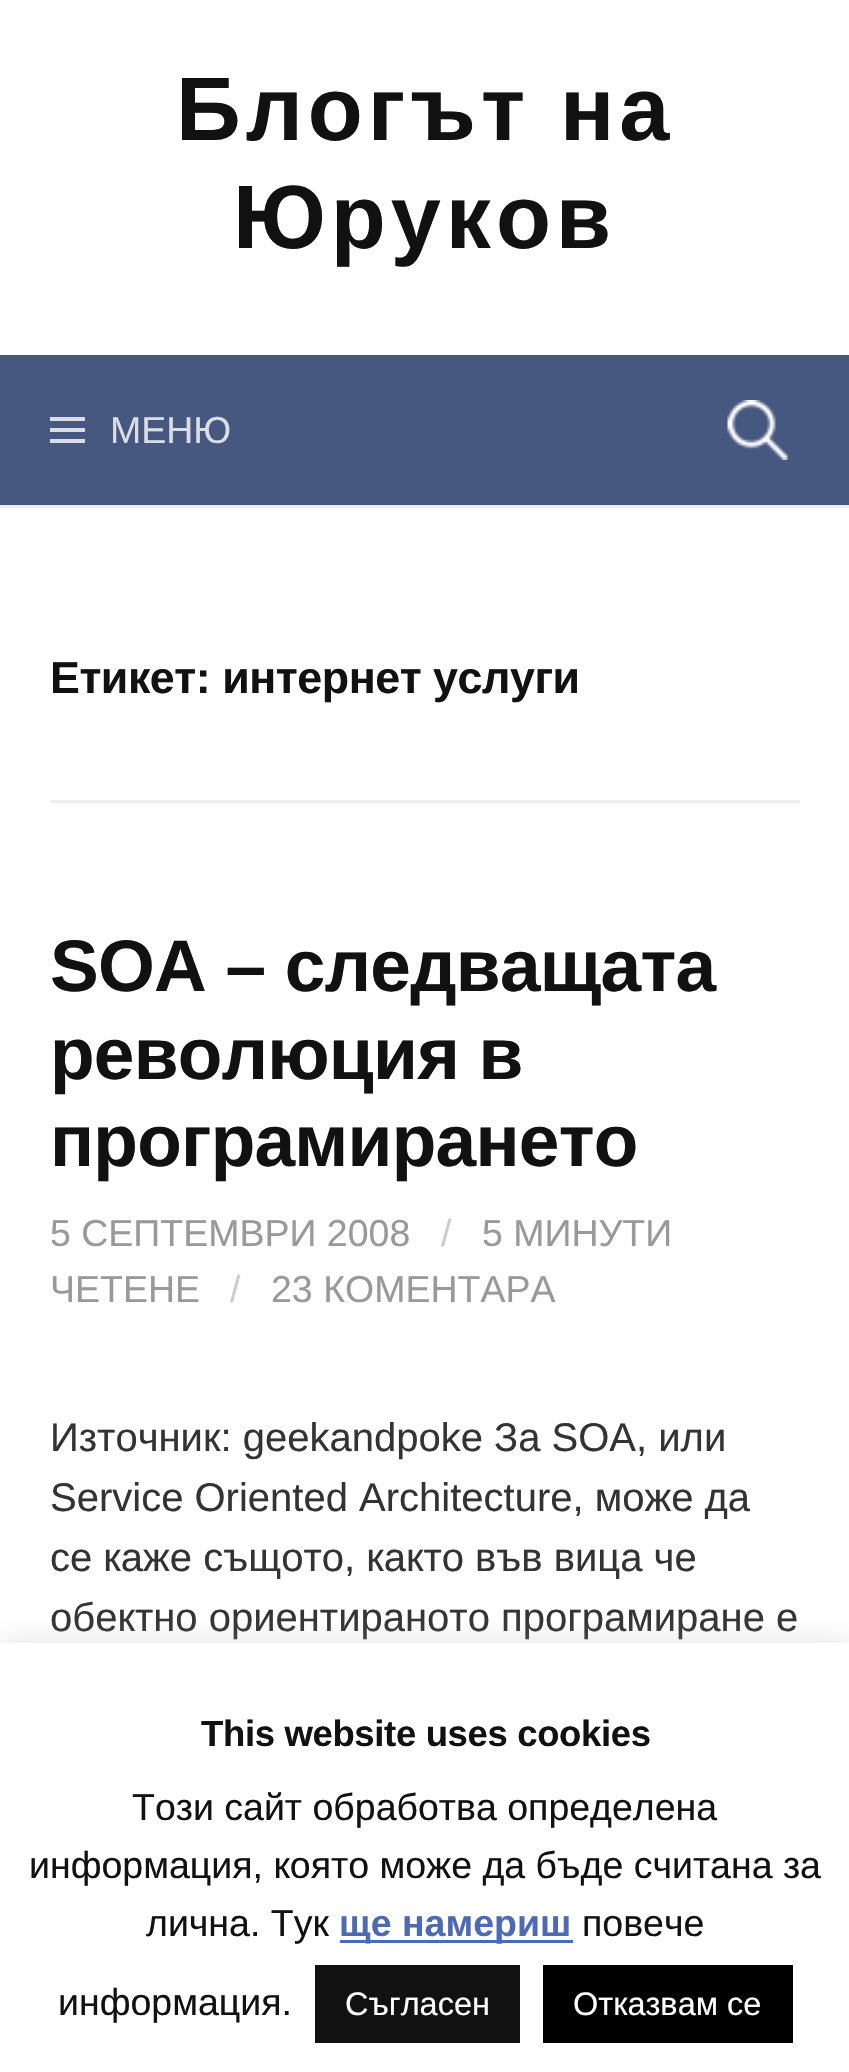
#include "include/core/SkBlurTypes.h"
#include "include/core/SkCanvas.h"
#include "include/core/SkData.h"
#include "include/core/SkFont.h"
#include "include/core/SkFontMgr.h"
#include "include/core/SkImage.h"
#include "include/core/SkMaskFilter.h"
#include "include/core/SkPaint.h"
#include "include/core/SkPathBuilder.h"
#include "include/core/SkTextBlob.h"
#include "include/effects/SkDashPathEffect.h"
#include "include/effects/SkGradientShader.h"
#include "include/utils/SkParsePath.h"

extern sk_sp<SkFontMgr> fontMgr;

static SkFont font(const char* family, int weight, float size, bool italic = false) {
    SkFontStyle style(weight, SkFontStyle::kNormal_Width,
        italic ? SkFontStyle::kItalic_Slant : SkFontStyle::kUpright_Slant);
    SkFont result(fontMgr->matchFamilyStyle(family, style), size);
    result.setSubpixel(true);
    return result;
}

static void drawLabel(SkCanvas* canvas, const char* s, float x, float y, const SkFont& font, SkColor color) {
    SkPaint ink(SkColor4f::FromColor(color));
    ink.setAntiAlias(true);
    canvas->drawString(s, x, y, font, ink);
}

static void drawTracked(SkCanvas* canvas, const char* s, float x, float y, const SkFont& font, const SkPaint& ink, float letter, float word) {
    std::vector<SkGlyphID> glyphs(font.countText(s, strlen(s), SkTextEncoding::kUTF8));
    std::vector<float> xs(glyphs.size());
    font.textToGlyphs(s, strlen(s), SkTextEncoding::kUTF8, glyphs);
    font.getXPos(glyphs, xs, x);
    float extra = 0;
    for (size_t i = 0; i < glyphs.size(); i++) {
        xs[i] += extra;
        extra += letter + word * (glyphs[i] == font.unicharToGlyph(' '));
    }
    canvas->drawTextBlob(SkTextBlob::MakeFromPosHGlyphs(glyphs, xs, y, font), 0, 0, ink);
}

static void fillRect(SkCanvas* canvas, float x, float y, float w, float h, SkColor color) {
    SkPaint ink(SkColor4f::FromColor(color));
    ink.setAntiAlias(true);
    canvas->drawRect(SkRect::MakeXYWH(x, y, w, h), ink);
}

static void drawPhoto(SkCanvas* canvas, const char* path, float x, float y, float w, float h) {
    auto image = SkImages::DeferredFromEncodedData(SkData::MakeFromFileName(path));
    canvas->drawImageRect(image, SkRect::MakeXYWH(x, y, w, h), SkSamplingOptions());
}

static SkPath parsePath(const char* data, bool evenOdd = false) {
    SkPath result = *SkParsePath::FromSVGString(data);
    if (evenOdd) result.setFillType(SkPathFillType::kEvenOdd);
    return result;
}

void draw(SkCanvas* canvas) {
    SkPaint paint;
    paint.setAntiAlias(true);
    canvas->clear(0xFFFFFFFF);
    fillRect(canvas, 0, 505, 849, 3, 0xFFEEEEEE);
    SkFont font1 = font("Liberation Sans", 700, 90);
    paint.setColor(0xFF111111);
    drawTracked(canvas, "Блогът на", 176, 140, font1, paint, 5, 0);
    drawTracked(canvas, "Юруков", 233, 248, font1, paint, 5, 0);
    fillRect(canvas, 0, 355, 849, 150, 0xFF465780);
    paint.setColor(0xFFDADDE6);
    canvas->drawPath(parsePath("M50 443V439H85V443ZM50 417H85V421H50ZM50 432V428H85V432Z"), paint);
    SkFont font2 = font("Liberation Sans", 400, 37.5f);
    drawLabel(canvas, "МЕНЮ", 110, 443, font2, 0xFFDADDE6);
    drawPhoto(canvas, "assets/img1.png", 727, 400, 61, 60);
    fillRect(canvas, 50, 800, 750, 3, 0xFFEEEEEE);
    SkFont font3 = font("Liberation Sans", 700, 44.75f);
    paint.setColor(0xFF111111);
    drawTracked(canvas, "Етикет: интернет услуги", 50, 693, font3, paint, -0.45f, 0);
    SkFont font4 = font("Liberation Sans", 700, 73);
    drawTracked(canvas, "SOA – следващата", 50, 991, font4, paint, -0.75f, 0);
    drawTracked(canvas, "революция в", 50, 1079, font4, paint, -0.75f, 0);
    drawTracked(canvas, "програмирането", 50, 1166, font4, paint, -0.75f, 0);
    drawLabel(canvas, "5 СЕПТЕМВРИ 2008", 50, 1246, font2, 0xFF999999);
    drawLabel(canvas, "/", 441, 1246, font2, 0xFFCCCCCC);
    drawLabel(canvas, "5 МИНУТИ", 482, 1246, font2, 0xFF999999);
    drawLabel(canvas, "ЧЕТЕНЕ", 50, 1302, font2, 0xFF999999);
    drawLabel(canvas, "/", 230, 1302, font2, 0xFFCCCCCC);
    drawLabel(canvas, "23 КОМЕНТАРА", 271, 1302, font2, 0xFF999999);
    SkFont font5 = font("Liberation Sans", 400, 40);
    drawLabel(canvas, "Източник: geekandpoke За SOA, или", 50, 1451, font5, 0xFF333333);
    drawLabel(canvas, "Service Oriented Architecture, може да", 50, 1511, font5, 0xFF333333);
    drawLabel(canvas, "се каже същото, както във вица че", 50, 1571, font5, 0xFF333333);
    drawLabel(canvas, "обектно ориентираното програмиране е", 50, 1631, font5, 0xFF333333);
    paint.setColor(0x4DACABAB);
    paint.setMaskFilter(SkMaskFilter::MakeBlur(kNormal_SkBlurStyle, 12.5f));
    canvas->drawRect(SkRect::MakeXYWH(0, 1640, 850, 430), paint);
    paint.setMaskFilter(nullptr);
    fillRect(canvas, 0, 1643, 849, 429, 0xFFFFFFFF);
    SkFont font6 = font("Liberation Sans", 700, 36.5f);
    paint.setColor(0xFF111111);
    drawTracked(canvas, "This website uses cookies", 201, 1746, font6, paint, -0.35f, 0);
    drawLabel(canvas, "Този сайт обработва определена", 132, 1820, font2, 0xFF111111);
    drawLabel(canvas, "информация, която може да бъде считана за", 29, 1878, font2, 0xFF111111);
    drawLabel(canvas, "лична. Тук", 146, 1936, font2, 0xFF111111);
    fillRect(canvas, 340, 1940, 233, 3, 0xFF4E6AB2);
    SkFont font7 = font("Liberation Sans", 700, 37.5f);
    drawLabel(canvas, "ще намериш", 339, 1936, font7, 0xFF4E6AB2);
    drawLabel(canvas, "повече", 582, 1936, font2, 0xFF111111);
    drawLabel(canvas, "информация.", 58, 2015, font2, 0xFF111111);
    fillRect(canvas, 315, 1965, 205, 78, 0xFF111111);
    SkFont font8 = font("Liberation Sans", 400, 32.5f);
    drawLabel(canvas, "Съгласен", 345, 2015, font8, 0xFFFFFFFF);
    fillRect(canvas, 543, 1965, 250, 78, 0xFF000000);
    drawLabel(canvas, "Отказвам се", 573, 2015, font8, 0xFFFFFFFF);
}
